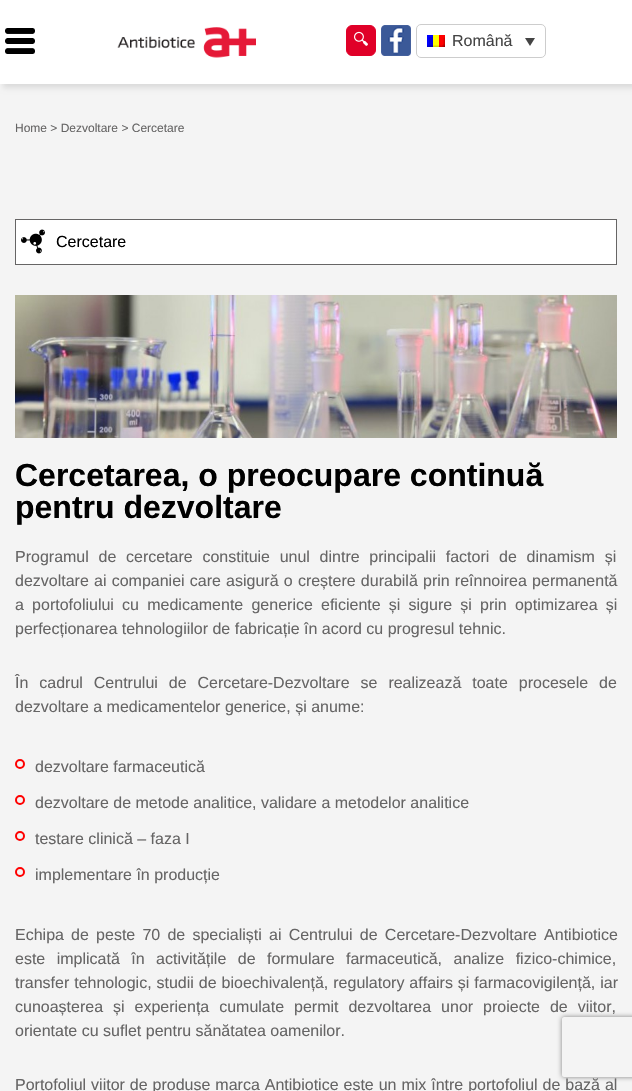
#include "include/core/SkBlurTypes.h"
#include "include/core/SkCanvas.h"
#include "include/core/SkData.h"
#include "include/core/SkFont.h"
#include "include/core/SkFontMgr.h"
#include "include/core/SkImage.h"
#include "include/core/SkMaskFilter.h"
#include "include/core/SkPaint.h"
#include "include/core/SkPathBuilder.h"
#include "include/core/SkTextBlob.h"
#include "include/effects/SkDashPathEffect.h"
#include "include/effects/SkGradientShader.h"
#include "include/utils/SkParsePath.h"

extern sk_sp<SkFontMgr> fontMgr;

static SkFont font(const char* family, int weight, float size, bool italic = false) {
    SkFontStyle style(weight, SkFontStyle::kNormal_Width,
        italic ? SkFontStyle::kItalic_Slant : SkFontStyle::kUpright_Slant);
    SkFont result(fontMgr->matchFamilyStyle(family, style), size);
    result.setSubpixel(true);
    return result;
}

static void drawLabel(SkCanvas* canvas, const char* s, float x, float y, const SkFont& font, SkColor color) {
    SkPaint ink(SkColor4f::FromColor(color));
    ink.setAntiAlias(true);
    canvas->drawString(s, x, y, font, ink);
}

static void drawTracked(SkCanvas* canvas, const char* s, float x, float y, const SkFont& font, const SkPaint& ink, float letter, float word) {
    std::vector<SkGlyphID> glyphs(font.countText(s, strlen(s), SkTextEncoding::kUTF8));
    std::vector<float> xs(glyphs.size());
    font.textToGlyphs(s, strlen(s), SkTextEncoding::kUTF8, glyphs);
    font.getXPos(glyphs, xs, x);
    float extra = 0;
    for (size_t i = 0; i < glyphs.size(); i++) {
        xs[i] += extra;
        extra += letter + word * (glyphs[i] == font.unicharToGlyph(' '));
    }
    canvas->drawTextBlob(SkTextBlob::MakeFromPosHGlyphs(glyphs, xs, y, font), 0, 0, ink);
}

static void fillRect(SkCanvas* canvas, float x, float y, float w, float h, SkColor color) {
    SkPaint ink(SkColor4f::FromColor(color));
    ink.setAntiAlias(true);
    canvas->drawRect(SkRect::MakeXYWH(x, y, w, h), ink);
}

static void drawPhoto(SkCanvas* canvas, const char* path, float x, float y, float w, float h) {
    auto image = SkImages::DeferredFromEncodedData(SkData::MakeFromFileName(path));
    canvas->drawImageRect(image, SkRect::MakeXYWH(x, y, w, h), SkSamplingOptions());
}

static SkPath parsePath(const char* data, bool evenOdd = false) {
    SkPath result = *SkParsePath::FromSVGString(data);
    if (evenOdd) result.setFillType(SkPathFillType::kEvenOdd);
    return result;
}

void draw(SkCanvas* canvas) {
    SkPaint paint;
    paint.setAntiAlias(true);
    canvas->clear(0xFFF4F4F4);
    paint.setColor(0x1A000000);
    paint.setMaskFilter(SkMaskFilter::MakeBlur(kNormal_SkBlurStyle, 2.5f));
    canvas->drawRect(SkRect::MakeXYWH(3, 4, 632, 84), paint);
    paint.setMaskFilter(nullptr);
    fillRect(canvas, 0, 0, 632, 84, 0xFFFFFFFF);
    drawPhoto(canvas, "assets/img1.png", 5, 28, 30, 26);
    drawPhoto(canvas, "assets/img2.png", 117, 27, 139, 31);
    paint.setColor(0xFFE00028);
    canvas->drawRoundRect(SkRect::MakeXYWH(346.5f, 25.5f, 29, 30), 5.5f, 5.5f, paint);
    paint.setStroke(true);
    paint.setStrokeWidth(1);
    canvas->drawRoundRect(SkRect::MakeXYWH(346.5f, 25.5f, 29, 30), 5.5f, 5.5f, paint);
    drawPhoto(canvas, "assets/img3.png", 354, 31, 14, 15);
    drawPhoto(canvas, "assets/img4.png", 381, 25, 30, 31);
    paint.setColor(0xFFCDCDCD);
    canvas->drawRoundRect(SkRect::MakeXYWH(416.5f, 24.5f, 129, 33), 4.5f, 4.5f, paint);
    drawPhoto(canvas, "assets/img5.png", 427, 35, 18, 12);
    SkFont font1 = font("Liberation Sans", 400, 16);
    drawLabel(canvas, "Română", 452, 46, font1, 0xFF444444);
    paint.setStroke(false);
    paint.setColor(0xFF444444);
    canvas->drawPath(parsePath("M525 38H535L530 46Z"), paint);
    SkFont font2 = font("Liberation Sans", 400, 12);
    drawLabel(canvas, "Home > Dezvoltare > Cercetare", 15, 132, font2, 0xFF666565);
    paint.setColor(0xFFFFFFFF);
    canvas->drawRect(SkRect::MakeXYWH(15.5f, 219.5f, 601, 45), paint);
    paint.setStroke(true);
    paint.setColor(0xFF666565);
    canvas->drawRect(SkRect::MakeXYWH(15.5f, 219.5f, 601, 45), paint);
    drawPhoto(canvas, "assets/img6.png", 21, 229, 24, 25);
    drawLabel(canvas, "Cercetare", 56, 247, font1, 0xFF000000);
    drawPhoto(canvas, "assets/img7.png", 15, 295, 602, 143);
    SkFont font3 = font("Liberation Sans", 700, 32);
    drawLabel(canvas, "Cercetarea, o preocupare continuă", 15, 486, font3, 0xFF000000);
    drawLabel(canvas, "pentru dezvoltare", 15, 518, font3, 0xFF000000);
    paint.setStroke(false);
    drawTracked(canvas, "Programul de cercetare constituie unul dintre principalii factori de dinamism și", 15, 562, font1, paint, 0, 5.25f);
    drawTracked(canvas, "dezvoltare ai companiei care asigură o creștere durabilă prin reînnoirea permanentă", 15, 586, font1, paint, 0, 0.75f);
    drawTracked(canvas, "a portofoliului cu medicamente generice eficiente și sigure și prin optimizarea și", 15, 610, font1, paint, 0, 3.75f);
    drawLabel(canvas, "perfecționarea tehnologiilor de fabricație în acord cu progresul tehnic.", 15, 634, font1, 0xFF666565);
    drawTracked(canvas, "În cadrul Centrului de Cercetare-Dezvoltare se realizează toate procesele de", 15, 688, font1, paint, 0, 6.5f);
    drawLabel(canvas, "dezvoltare a medicamentelor generice, și anume:", 15, 712, font1, 0xFF666565);
    paint.setStroke(true);
    paint.setStrokeWidth(2);
    paint.setColor(0xFFFF0000);
    canvas->drawCircle(20, 764, 4, paint);
    drawLabel(canvas, "dezvoltare farmaceutică", 35, 772, font1, 0xFF666565);
    canvas->drawCircle(20, 800, 4, paint);
    drawLabel(canvas, "dezvoltare de metode analitice, validare a metodelor analitice", 35, 808, font1, 0xFF666565);
    canvas->drawCircle(20, 836, 4, paint);
    drawLabel(canvas, "testare clinică – faza I", 35, 844, font1, 0xFF666565);
    canvas->drawCircle(20, 872, 4, paint);
    drawLabel(canvas, "implementare în producție", 35, 880, font1, 0xFF666565);
    paint.setStroke(false);
    paint.setColor(0xFF666565);
    drawTracked(canvas, "Echipa de peste 70 de specialiști ai Centrului de Cercetare-Dezvoltare Antibiotice", 15, 940, font1, paint, 0, 2.75f);
    drawTracked(canvas, "este implicată în activitățile de formulare farmaceutică, analize fizico-chimice,", 15, 964, font1, paint, 0, 7);
    drawTracked(canvas, "transfer tehnologic, studii de bioechivalență, regulatory affairs și farmacovigilență, iar", 15, 988, font1, paint, 0, 0.5f);
    drawTracked(canvas, "cunoașterea și experiența cumulate permit dezvoltarea unor proiecte de viitor,", 15, 1012, font1, paint, 0, 5.5f);
    drawLabel(canvas, "orientate cu suflet pentru sănătatea oamenilor.", 15, 1036, font1, 0xFF666565);
    drawTracked(canvas, "Portofoliul viitor de produse marca Antibiotice este un mix între portofoliul de bază al", 15, 1090, font1, paint, 0, 0.5f);
    canvas->save();
    canvas->clipPath(parsePath("M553 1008H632V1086H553ZM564 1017H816C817 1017 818 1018 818 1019V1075C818 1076 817 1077 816 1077H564C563 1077 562 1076 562 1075V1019C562 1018 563 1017 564 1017Z", true), true);
    paint.setColor(0xFF808080);
    paint.setMaskFilter(SkMaskFilter::MakeBlur(kNormal_SkBlurStyle, 2.5f));
    canvas->drawRoundRect(SkRect::MakeXYWH(562, 1017, 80, 60), 2, 2, paint);
    paint.setMaskFilter(nullptr);
    canvas->restore();
}
